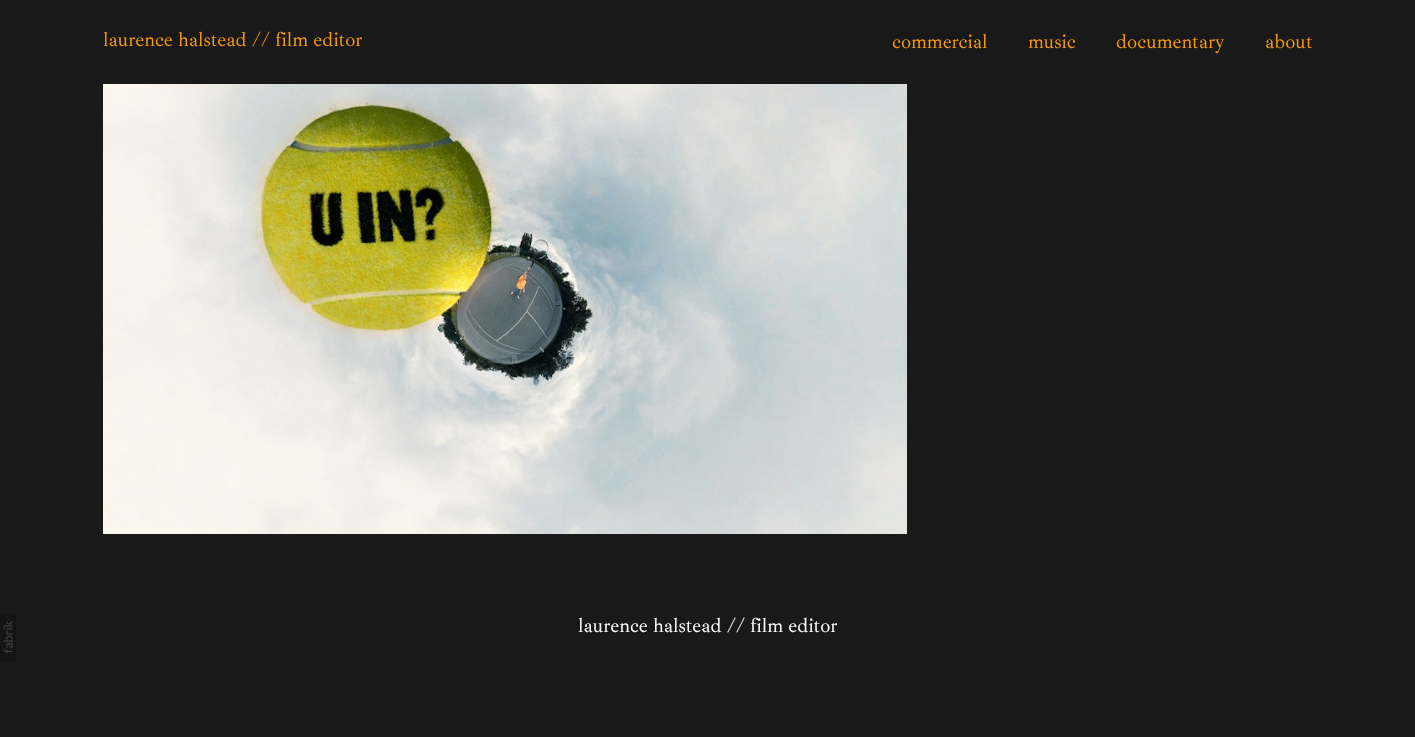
#include "include/core/SkBlurTypes.h"
#include "include/core/SkCanvas.h"
#include "include/core/SkData.h"
#include "include/core/SkFont.h"
#include "include/core/SkFontMgr.h"
#include "include/core/SkImage.h"
#include "include/core/SkMaskFilter.h"
#include "include/core/SkPaint.h"
#include "include/core/SkPathBuilder.h"
#include "include/core/SkTextBlob.h"
#include "include/effects/SkDashPathEffect.h"
#include "include/effects/SkGradientShader.h"
#include "include/utils/SkParsePath.h"

extern sk_sp<SkFontMgr> fontMgr;

static SkFont font(const char* family, int weight, float size, bool italic = false) {
    SkFontStyle style(weight, SkFontStyle::kNormal_Width,
        italic ? SkFontStyle::kItalic_Slant : SkFontStyle::kUpright_Slant);
    SkFont result(fontMgr->matchFamilyStyle(family, style), size);
    result.setSubpixel(true);
    return result;
}

static void drawLabel(SkCanvas* canvas, const char* s, float x, float y, const SkFont& font, SkColor color) {
    SkPaint ink(SkColor4f::FromColor(color));
    ink.setAntiAlias(true);
    canvas->drawString(s, x, y, font, ink);
}

static void drawPhoto(SkCanvas* canvas, const char* path, float x, float y, float w, float h) {
    auto image = SkImages::DeferredFromEncodedData(SkData::MakeFromFileName(path));
    canvas->drawImageRect(image, SkRect::MakeXYWH(x, y, w, h), SkSamplingOptions());
}

void draw(SkCanvas* canvas) {
    SkPaint paint;
    paint.setAntiAlias(true);
    canvas->clear(0xFF191919);
    drawPhoto(canvas, "assets/img1.png", 0, 613, 16, 48);
    SkFont font1 = font("Ibarra Real Nova", 400, 20);
    drawLabel(canvas, "laurence halstead // film editor", 103, 46, font1, 0xFFFF9D00);
    drawLabel(canvas, "commercial", 892, 48, font1, 0xFFFF9D00);
    drawLabel(canvas, "music", 1028, 48, font1, 0xFFFF9D00);
    drawLabel(canvas, "documentary", 1116, 48, font1, 0xFFFF9D00);
    drawLabel(canvas, "about", 1265, 48, font1, 0xFFFF9D00);
    drawPhoto(canvas, "assets/img2.png", 103, 84, 804, 450);
    drawLabel(canvas, "laurence halstead // film editor", 578, 632, font1, 0xFFFFFFFF);
}
